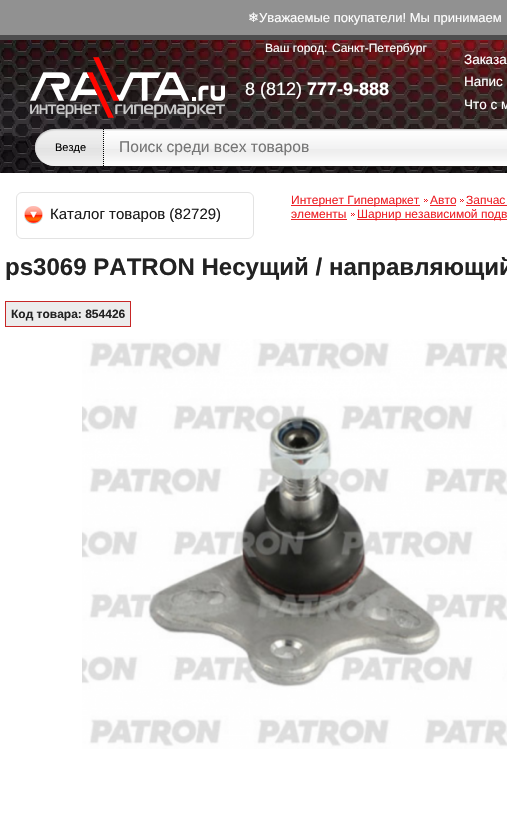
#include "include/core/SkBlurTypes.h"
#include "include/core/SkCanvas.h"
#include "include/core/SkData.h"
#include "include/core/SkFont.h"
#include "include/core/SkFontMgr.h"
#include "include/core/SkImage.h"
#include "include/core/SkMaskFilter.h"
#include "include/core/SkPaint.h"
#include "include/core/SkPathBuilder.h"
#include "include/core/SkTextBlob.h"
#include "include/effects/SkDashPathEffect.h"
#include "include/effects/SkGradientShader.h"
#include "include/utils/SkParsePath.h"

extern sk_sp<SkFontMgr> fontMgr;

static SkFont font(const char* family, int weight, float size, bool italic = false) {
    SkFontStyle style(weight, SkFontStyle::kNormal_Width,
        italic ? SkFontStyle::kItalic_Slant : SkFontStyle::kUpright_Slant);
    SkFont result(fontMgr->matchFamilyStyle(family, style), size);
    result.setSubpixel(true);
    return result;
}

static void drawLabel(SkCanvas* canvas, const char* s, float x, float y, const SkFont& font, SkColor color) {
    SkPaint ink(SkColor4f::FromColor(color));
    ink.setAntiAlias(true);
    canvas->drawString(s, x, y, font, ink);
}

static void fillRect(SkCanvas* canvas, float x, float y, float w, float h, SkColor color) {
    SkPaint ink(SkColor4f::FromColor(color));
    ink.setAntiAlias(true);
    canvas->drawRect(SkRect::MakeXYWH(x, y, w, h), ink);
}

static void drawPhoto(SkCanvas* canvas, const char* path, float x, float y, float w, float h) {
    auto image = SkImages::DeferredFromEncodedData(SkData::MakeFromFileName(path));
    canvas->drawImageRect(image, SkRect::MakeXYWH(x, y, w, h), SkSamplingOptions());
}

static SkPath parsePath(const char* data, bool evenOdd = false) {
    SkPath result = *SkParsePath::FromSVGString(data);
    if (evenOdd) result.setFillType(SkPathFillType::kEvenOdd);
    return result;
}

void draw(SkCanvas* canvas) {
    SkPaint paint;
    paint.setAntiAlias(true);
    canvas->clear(0xFFFFFFFF);
    fillRect(canvas, 0, 0, 507, 35, 0xFF919191);
    SkFont font1 = font("DejaVu Sans", 400, 13);
    drawLabel(canvas, "❄", 248, 22, font1, 0xFFFFFFFF);
    SkFont font2 = font("Liberation Sans", 400, 13);
    drawLabel(canvas, "Уважаемые покупатели! Мы принимаем", 259, 22, font2, 0xFFFFFFFF);
    drawPhoto(canvas, "assets/img1.png", 0, 40, 507, 133);
    fillRect(canvas, 0, 35, 507, 5, 0xFF4D4D4E);
    SkFont font3 = font("Liberation Sans", 400, 12);
    drawLabel(canvas, "Ваш город:", 265, 52, font3, 0xFFFFFFFF);
    drawLabel(canvas, "Санкт-Петербург", 332, 52, font3, 0xFFFFFFFF);
    drawPhoto(canvas, "assets/img2.png", 30, 57, 195, 61);
    SkFont font4 = font("Liberation Sans", 400, 18);
    drawLabel(canvas, "8 (812)", 245, 95, font4, 0xFFFFFFFF);
    SkFont font5 = font("Liberation Sans", 700, 18);
    drawLabel(canvas, "777-9-888", 307, 95, font5, 0xFFFFFFFF);
    SkFont font6 = font("Liberation Sans", 400, 13.5f);
    drawLabel(canvas, "Заказа", 464, 64, font6, 0xFFFFFFFF);
    drawLabel(canvas, "Напис", 464, 86, font6, 0xFFFFFFFF);
    drawLabel(canvas, "Что с м", 464, 109, font6, 0xFFFFFFFF);
    drawPhoto(canvas, "assets/img3.png", 35, 129, 472, 37);
    drawPhoto(canvas, "assets/img4.png", 35, 129, 69, 37);
    paint.setStroke(true);
    paint.setStrokeWidth(1);
    paint.setColor(0xFF000000);
    paint.setPathEffect(SkDashPathEffect::Make({{1, 1}}, 0));
    canvas->drawPath(parsePath("M103.5 129V166"), paint);
    paint.setPathEffect(nullptr);
    canvas->save();
    canvas->clipRect(SkRect::MakeXYWH(35, 129, 68, 24));
    SkFont font7 = font("Liberation Sans", 400, 11);
    drawLabel(canvas, "Везде", 55, 151, font7, 0xFF000000);
    canvas->restore();
    drawPhoto(canvas, "assets/img5.png", 104, 133, 403, 28);
    SkFont font8 = font("Liberation Sans", 400, 15.6f);
    drawLabel(canvas, "Поиск среди всех товаров", 119, 152, font8, 0xFF757575);
    paint.setColor(0xFFE3E3E3);
    canvas->drawRoundRect(SkRect::MakeXYWH(16.5f, 192.5f, 237, 46), 5.5f, 5.5f, paint);
    drawPhoto(canvas, "assets/img6.png", 24, 206, 19, 18);
    SkFont font9 = font("Liberation Sans", 400, 15);
    drawLabel(canvas, "Каталог товаров (82729)", 50, 219, font9, 0xFF1B1B1B);
    fillRect(canvas, 291, 205, 129, 1, 0xFFED2027);
    drawLabel(canvas, "Интернет Гипермаркет", 291, 204, font3, 0xFFED2027);
    drawPhoto(canvas, "assets/img7.png", 424, 199, 4, 3);
    drawLabel(canvas, "Авто", 430, 204, font3, 0xFFED2027);
    fillRect(canvas, 430, 205, 26, 1, 0xFFED2027);
    drawPhoto(canvas, "assets/img7.png", 460, 199, 4, 3);
    drawLabel(canvas, "Запчас", 466, 204, font3, 0xFFED2027);
    fillRect(canvas, 466, 205, 41, 1, 0xFFED2027);
    drawLabel(canvas, "элементы", 291, 218, font3, 0xFFED2027);
    fillRect(canvas, 291, 219, 56, 1, 0xFFED2027);
    drawPhoto(canvas, "assets/img7.png", 351, 213, 4, 3);
    fillRect(canvas, 357, 219, 150, 1, 0xFFED2027);
    drawLabel(canvas, "Шарнир независимой подв", 357, 218, font3, 0xFFED2027);
    SkFont font10 = font("Liberation Sans", 700, 24.05f);
    drawLabel(canvas, "ps3069 PATRON Несущий / направляющий", 5, 275, font10, 0xFF222222);
    paint.setStroke(false);
    paint.setColor(0xFFECECEC);
    canvas->drawRect(SkRect::MakeXYWH(5.5f, 301.5f, 125, 25), paint);
    paint.setStroke(true);
    paint.setColor(0xFFC72626);
    canvas->drawRect(SkRect::MakeXYWH(5.5f, 301.5f, 125, 25), paint);
    SkFont font11 = font("Liberation Sans", 700, 12);
    drawLabel(canvas, "Код товара: 854426", 11, 318, font11, 0xFF222222);
    drawPhoto(canvas, "assets/img8.png", 82, 339, 425, 410);
}
